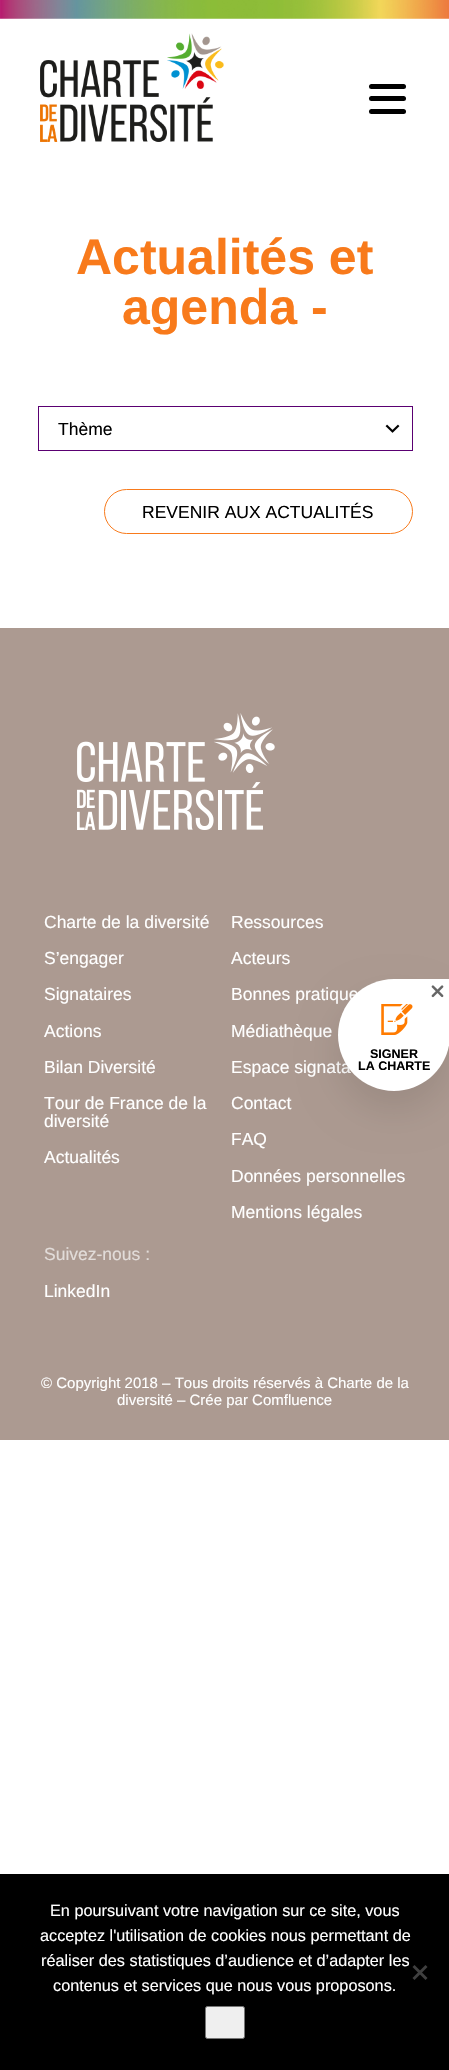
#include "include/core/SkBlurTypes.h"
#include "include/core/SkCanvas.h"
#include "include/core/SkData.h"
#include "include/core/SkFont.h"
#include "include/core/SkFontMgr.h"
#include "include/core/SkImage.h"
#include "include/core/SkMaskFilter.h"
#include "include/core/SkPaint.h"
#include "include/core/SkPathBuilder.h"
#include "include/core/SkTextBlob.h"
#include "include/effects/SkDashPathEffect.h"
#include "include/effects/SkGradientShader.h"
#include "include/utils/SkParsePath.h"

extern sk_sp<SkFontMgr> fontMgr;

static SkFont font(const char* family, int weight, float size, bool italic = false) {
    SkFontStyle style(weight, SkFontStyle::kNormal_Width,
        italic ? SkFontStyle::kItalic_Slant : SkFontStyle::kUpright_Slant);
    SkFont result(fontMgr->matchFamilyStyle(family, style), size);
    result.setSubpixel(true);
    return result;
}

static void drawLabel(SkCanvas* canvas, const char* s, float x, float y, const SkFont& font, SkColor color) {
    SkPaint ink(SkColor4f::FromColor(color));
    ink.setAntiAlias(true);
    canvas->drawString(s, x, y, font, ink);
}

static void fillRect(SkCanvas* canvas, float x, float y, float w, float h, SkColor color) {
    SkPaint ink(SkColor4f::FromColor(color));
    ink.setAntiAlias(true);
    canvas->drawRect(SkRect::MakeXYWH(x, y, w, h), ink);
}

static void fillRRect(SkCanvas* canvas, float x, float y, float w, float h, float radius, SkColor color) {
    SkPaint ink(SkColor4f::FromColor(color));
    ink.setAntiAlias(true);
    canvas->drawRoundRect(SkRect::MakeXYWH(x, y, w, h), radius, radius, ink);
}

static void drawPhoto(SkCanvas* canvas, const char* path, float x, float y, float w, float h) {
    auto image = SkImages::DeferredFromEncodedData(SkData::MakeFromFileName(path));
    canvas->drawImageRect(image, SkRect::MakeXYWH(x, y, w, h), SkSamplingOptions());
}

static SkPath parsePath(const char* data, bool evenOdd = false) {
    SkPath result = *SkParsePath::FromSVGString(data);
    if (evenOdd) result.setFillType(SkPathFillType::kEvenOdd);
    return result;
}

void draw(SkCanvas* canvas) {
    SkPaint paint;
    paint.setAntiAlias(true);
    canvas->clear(0xFFFFFFFF);
    drawPhoto(canvas, "assets/img1.png", 0, 0, 449, 19);
    drawPhoto(canvas, "assets/img2.png", 40, 33, 184, 109);
    fillRRect(canvas, 369, 84, 37, 5, 2.5f, 0xFF000000);
    fillRRect(canvas, 369, 96, 37, 5, 2.5f, 0xFF000000);
    fillRRect(canvas, 369, 109, 37, 5, 2.5f, 0xFF000000);
    SkFont font1 = font("Liberation Sans", 700, 50);
    drawLabel(canvas, "Actualités et", 76, 274, font1, 0xFFF87A1B);
    drawLabel(canvas, "agenda -", 122, 324, font1, 0xFFF87A1B);
    drawPhoto(canvas, "assets/img3.png", 385, 424, 15, 9);
    paint.setStroke(true);
    paint.setStrokeWidth(1);
    paint.setColor(0xFF5A0072);
    canvas->drawRect(SkRect::MakeXYWH(38.5f, 406.5f, 374, 44), paint);
    SkFont font2 = font("Liberation Sans", 400, 17.5f);
    drawLabel(canvas, "Thème", 58, 435, font2, 0xFF000000);
    paint.setColor(0xFFF87A1B);
    canvas->drawRoundRect(SkRect::MakeXYWH(104.5f, 489.5f, 308, 44), 22, 22, paint);
    drawLabel(canvas, "REVENIR AUX ACTUALITÉS", 142, 518, font2, 0xFF000000);
    fillRect(canvas, 0, 628, 449, 812, 0xFFAC9A91);
    drawPhoto(canvas, "assets/img4.png", 77, 713, 198, 117);
    drawLabel(canvas, "Charte de la diversité", 44, 928, font2, 0xFFFFFFFF);
    drawLabel(canvas, "S’engager", 44, 964, font2, 0xFFFFFFFF);
    drawLabel(canvas, "Signataires", 44, 1000, font2, 0xFFFFFFFF);
    drawLabel(canvas, "Actions", 44, 1037, font2, 0xFFFFFFFF);
    drawLabel(canvas, "Bilan Diversité", 44, 1073, font2, 0xFFFFFFFF);
    drawLabel(canvas, "Tour de France de la", 44, 1109, font2, 0xFFFFFFFF);
    drawLabel(canvas, "diversité", 44, 1127, font2, 0xFFFFFFFF);
    drawLabel(canvas, "Actualités", 44, 1163, font2, 0xFFFFFFFF);
    drawLabel(canvas, "Ressources", 231, 928, font2, 0xFFFFFFFF);
    drawLabel(canvas, "Acteurs", 231, 964, font2, 0xFFFFFFFF);
    drawLabel(canvas, "Bonnes pratique", 231, 1000, font2, 0xFFFFFFFF);
    drawLabel(canvas, "Médiathèque", 231, 1037, font2, 0xFFFFFFFF);
    drawLabel(canvas, "Espace signata", 231, 1073, font2, 0xFFFFFFFF);
    drawLabel(canvas, "Contact", 231, 1109, font2, 0xFFFFFFFF);
    drawLabel(canvas, "FAQ", 231, 1145, font2, 0xFFFFFFFF);
    drawLabel(canvas, "Données personnelles", 231, 1182, font2, 0xFFFFFFFF);
    drawLabel(canvas, "Mentions légales", 231, 1218, font2, 0xFFFFFFFF);
    drawLabel(canvas, "Suivez-nous :", 44, 1260, font2, 0xFFE2DCD9);
    drawLabel(canvas, "LinkedIn", 44, 1297, font2, 0xFFFFFFFF);
    SkFont font3 = font("Liberation Sans", 400, 15);
    drawLabel(canvas, "© Copyright 2018 – Tous droits réservés à Charte de la", 41, 1388, font3, 0xFFFFFFFF);
    drawLabel(canvas, "diversité – Crée par Comfluence", 117, 1405, font3, 0xFFFFFFFF);
    paint.setStroke(false);
    paint.setColor(0x1A000000);
    paint.setMaskFilter(SkMaskFilter::MakeBlur(kNormal_SkBlurStyle, 19));
    canvas->drawRoundRect(SkRect::MakeXYWH(338, 998, 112, 112), 56, 56, paint);
    paint.setMaskFilter(nullptr);
    paint.setColor(0xFFFFFFFF);
    canvas->drawPath(parsePath("M394 979H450V1035C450 1066 425 1091 394 1091C363 1091 338 1066 338 1035C338 1004 363 979 394 979Z"), paint);
    drawPhoto(canvas, "assets/img5.png", 431, 985, 13, 13);
    drawPhoto(canvas, "assets/img6.png", 381, 1004, 32, 31);
    SkFont font4 = font("Liberation Sans", 700, 12.5f);
    drawLabel(canvas, "SIGNER", 370, 1058, font4, 0xFF000000);
    drawLabel(canvas, "LA CHARTE", 358, 1070, font4, 0xFF000000);
    fillRect(canvas, 0, 1874, 449, 196, 0xFF000000);
    SkFont font5 = font("Liberation Sans", 400, 16.25f);
    drawLabel(canvas, "En poursuivant votre navigation sur ce site, vous", 50, 1916, font5, 0xFFFFFFFF);
    drawLabel(canvas, "acceptez l'utilisation de cookies nous permettant de", 40, 1941, font5, 0xFFFFFFFF);
    drawLabel(canvas, "réaliser des statistiques d’audience et d’adapter les", 41, 1966, font5, 0xFFFFFFFF);
    drawLabel(canvas, "contenus et services que nous vous proposons.", 53, 1991, font5, 0xFFFFFFFF);
    paint.setColor(0xFF404040);
    canvas->drawPath(parsePath("M425.5 1965L427.5 1967L414.5 1980L412.5 1978Z"), paint);
    canvas->drawPath(parsePath("M412.5 1967L414.5 1965L427.5 1978L425.5 1980Z"), paint);
    paint.setColor(0xFFEFEFEF);
    canvas->drawRoundRect(SkRect::MakeXYWH(205.5f, 2006.5f, 39, 32), 2, 2, paint);
    paint.setStroke(true);
    paint.setColor(0xFF767676);
    canvas->drawRoundRect(SkRect::MakeXYWH(205.5f, 2006.5f, 39, 32), 2, 2, paint);
}
